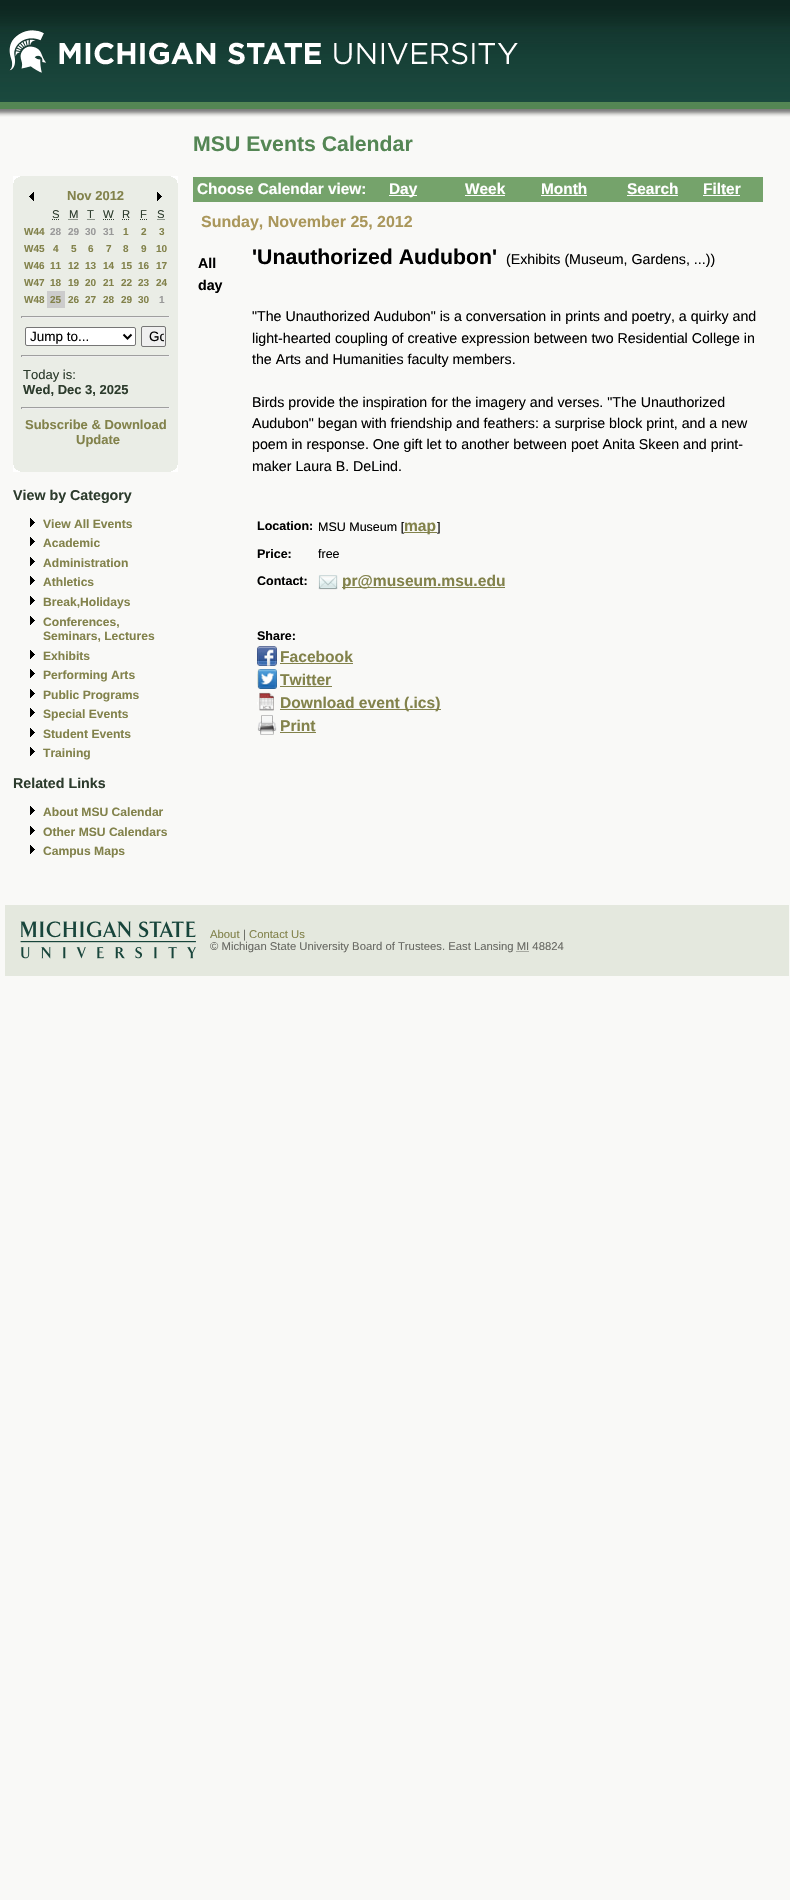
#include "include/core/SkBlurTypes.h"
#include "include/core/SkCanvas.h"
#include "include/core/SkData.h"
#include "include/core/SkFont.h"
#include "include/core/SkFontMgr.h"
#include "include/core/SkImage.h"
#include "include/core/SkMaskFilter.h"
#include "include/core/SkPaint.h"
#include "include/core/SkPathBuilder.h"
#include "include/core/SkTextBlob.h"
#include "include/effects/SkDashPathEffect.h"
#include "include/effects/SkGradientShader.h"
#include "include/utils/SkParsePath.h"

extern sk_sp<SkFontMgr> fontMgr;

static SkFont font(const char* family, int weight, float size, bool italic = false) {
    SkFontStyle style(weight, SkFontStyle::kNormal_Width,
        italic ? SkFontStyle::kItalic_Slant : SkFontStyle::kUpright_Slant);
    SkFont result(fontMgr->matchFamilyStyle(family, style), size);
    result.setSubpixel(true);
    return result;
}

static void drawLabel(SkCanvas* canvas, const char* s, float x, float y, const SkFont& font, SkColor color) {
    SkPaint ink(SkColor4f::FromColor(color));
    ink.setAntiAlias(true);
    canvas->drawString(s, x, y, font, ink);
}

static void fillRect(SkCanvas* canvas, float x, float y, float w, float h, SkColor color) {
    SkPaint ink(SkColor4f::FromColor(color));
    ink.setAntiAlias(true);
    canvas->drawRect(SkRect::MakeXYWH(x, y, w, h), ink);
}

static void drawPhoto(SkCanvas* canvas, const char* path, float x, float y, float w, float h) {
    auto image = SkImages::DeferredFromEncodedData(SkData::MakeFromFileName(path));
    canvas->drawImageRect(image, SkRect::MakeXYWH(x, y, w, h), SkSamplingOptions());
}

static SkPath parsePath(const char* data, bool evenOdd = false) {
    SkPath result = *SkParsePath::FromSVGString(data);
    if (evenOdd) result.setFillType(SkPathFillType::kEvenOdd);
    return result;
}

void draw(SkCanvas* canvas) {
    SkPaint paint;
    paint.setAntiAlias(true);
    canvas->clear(0xFFF9F9F7);
    drawPhoto(canvas, "assets/img1.png", 0, 0, 790, 117);
    drawPhoto(canvas, "assets/img2.png", 9, 30, 509, 43);
    fillRect(canvas, 13, 176, 8, 296, 0xFFEAEDE6);
    drawPhoto(canvas, "assets/img3.png", 13, 176, 7, 7);
    fillRect(canvas, 21, 176, 149, 296, 0xFFEAEDE6);
    fillRect(canvas, 170, 176, 8, 296, 0xFFEAEDE6);
    drawPhoto(canvas, "assets/img4.png", 171, 176, 7, 7);
    drawPhoto(canvas, "assets/img5.png", 29, 192, 5, 9);
    SkFont font1 = font("Liberation Sans", 700, 13);
    drawLabel(canvas, "Nov 2012", 67, 200, font1, 0xFF82824B);
    drawPhoto(canvas, "assets/img6.png", 157, 192, 5, 9);
    SkFont font2 = font("Liberation Sans", 400, 11.3f);
    drawLabel(canvas, "S", 52, 218, font2, 0xFF2D3C2D);
    paint.setStroke(true);
    paint.setStrokeWidth(1);
    paint.setColor(0xFF2D3C2D);
    paint.setPathEffect(SkDashPathEffect::Make({{1, 1}}, 0));
    canvas->drawPath(parsePath("M52 219.5H59.5"), paint);
    paint.setPathEffect(nullptr);
    drawLabel(canvas, "M", 69, 218, font2, 0xFF2D3C2D);
    paint.setPathEffect(SkDashPathEffect::Make({{1, 1}}, 0));
    canvas->drawPath(parsePath("M68.5 219.5H78"), paint);
    paint.setPathEffect(nullptr);
    drawLabel(canvas, "T", 87, 218, font2, 0xFF2D3C2D);
    canvas->drawPath(parsePath("M87.5 219.5H88.5M89.5 219.5H90.5M91.5 219.5H92.5M93.5 219.5H94.5"), paint);
    drawLabel(canvas, "W", 103, 218, font2, 0xFF2D3C2D);
    paint.setPathEffect(SkDashPathEffect::Make({{1, 1}}, 0));
    canvas->drawPath(parsePath("M103 219.5H114"), paint);
    paint.setPathEffect(nullptr);
    drawLabel(canvas, "R", 122, 218, font2, 0xFF2D3C2D);
    paint.setPathEffect(SkDashPathEffect::Make({{1, 1}}, 0));
    canvas->drawPath(parsePath("M122 219.5H130"), paint);
    paint.setPathEffect(nullptr);
    drawLabel(canvas, "F", 140, 218, font2, 0xFF2D3C2D);
    canvas->drawPath(parsePath("M140 219.5H141M142 219.5H143M144 219.5H145M146 219.5H147"), paint);
    drawLabel(canvas, "S", 157, 218, font2, 0xFF2D3C2D);
    paint.setPathEffect(SkDashPathEffect::Make({{1, 1}}, 0));
    canvas->drawPath(parsePath("M157.5 219.5H165"), paint);
    paint.setPathEffect(nullptr);
    SkFont font3 = font("Liberation Sans", 700, 10);
    drawLabel(canvas, "W44", 24, 235, font3, 0xFF82824B);
    drawLabel(canvas, "28", 50, 235, font3, 0xFF999999);
    drawLabel(canvas, "29", 68, 235, font3, 0xFF999999);
    drawLabel(canvas, "30", 85, 235, font3, 0xFF999999);
    drawLabel(canvas, "31", 103, 235, font3, 0xFF999999);
    drawLabel(canvas, "1", 123, 235, font3, 0xFF82824B);
    drawLabel(canvas, "2", 141, 235, font3, 0xFF82824B);
    drawLabel(canvas, "3", 159, 235, font3, 0xFF82824B);
    drawLabel(canvas, "W45", 24, 252, font3, 0xFF82824B);
    drawLabel(canvas, "4", 53, 252, font3, 0xFF82824B);
    drawLabel(canvas, "5", 71, 252, font3, 0xFF82824B);
    drawLabel(canvas, "6", 88, 252, font3, 0xFF82824B);
    drawLabel(canvas, "7", 106, 252, font3, 0xFF82824B);
    drawLabel(canvas, "8", 123, 252, font3, 0xFF82824B);
    drawLabel(canvas, "9", 141, 252, font3, 0xFF82824B);
    drawLabel(canvas, "10", 156, 252, font3, 0xFF82824B);
    drawLabel(canvas, "W46", 24, 269, font3, 0xFF82824B);
    drawLabel(canvas, "11", 50, 269, font3, 0xFF82824B);
    drawLabel(canvas, "12", 68, 269, font3, 0xFF82824B);
    drawLabel(canvas, "13", 85, 269, font3, 0xFF82824B);
    drawLabel(canvas, "14", 103, 269, font3, 0xFF82824B);
    drawLabel(canvas, "15", 121, 269, font3, 0xFF82824B);
    drawLabel(canvas, "16", 138, 269, font3, 0xFF82824B);
    drawLabel(canvas, "17", 156, 269, font3, 0xFF82824B);
    drawLabel(canvas, "W47", 24, 286, font3, 0xFF82824B);
    drawLabel(canvas, "18", 50, 286, font3, 0xFF82824B);
    drawLabel(canvas, "19", 68, 286, font3, 0xFF82824B);
    drawLabel(canvas, "20", 85, 286, font3, 0xFF82824B);
    drawLabel(canvas, "21", 103, 286, font3, 0xFF82824B);
    drawLabel(canvas, "22", 121, 286, font3, 0xFF82824B);
    drawLabel(canvas, "23", 138, 286, font3, 0xFF82824B);
    drawLabel(canvas, "24", 156, 286, font3, 0xFF82824B);
    drawLabel(canvas, "W48", 24, 303, font3, 0xFF82824B);
    fillRect(canvas, 47, 291, 18, 17, 0xFFCCCCCC);
    drawLabel(canvas, "25", 50, 303, font3, 0xFF82824B);
    drawLabel(canvas, "26", 68, 303, font3, 0xFF82824B);
    drawLabel(canvas, "27", 85, 303, font3, 0xFF82824B);
    drawLabel(canvas, "28", 103, 303, font3, 0xFF82824B);
    drawLabel(canvas, "29", 121, 303, font3, 0xFF82824B);
    drawLabel(canvas, "30", 138, 303, font3, 0xFF82824B);
    drawLabel(canvas, "1", 159, 303, font3, 0xFF999999);
    fillRect(canvas, 21, 316, 149, 1, 0xFF9F9F9F);
    fillRect(canvas, 169, 316, 1, 2, 0xFFEEEEEE);
    fillRect(canvas, 21, 317, 149, 1, 0xFFEEEEEE);
    fillRect(canvas, 21, 316, 1, 2, 0xFF9F9F9F);
    paint.setStroke(false);
    paint.setColor(0xFFFFFFFF);
    canvas->drawRoundRect(SkRect::MakeXYWH(25.5f, 327.5f, 110, 18), 1.5f, 1.5f, paint);
    paint.setStroke(true);
    paint.setColor(0xFF767676);
    canvas->drawRoundRect(SkRect::MakeXYWH(25.5f, 327.5f, 110, 18), 1.5f, 1.5f, paint);
    paint.setStrokeWidth(2);
    paint.setColor(0xFF000000);
    canvas->drawPath(parsePath("M123.5 334.5L127.5 338.5L131.5 334.5"), paint);
    SkFont font4 = font("Liberation Sans", 400, 13.5f);
    drawLabel(canvas, "Jump to...", 30, 341, font4, 0xFF000000);
    paint.setStroke(false);
    paint.setColor(0xFFEFEFEF);
    canvas->drawRoundRect(SkRect::MakeXYWH(141.5f, 326.5f, 24, 20), 1.5f, 1.5f, paint);
    paint.setStroke(true);
    paint.setStrokeWidth(1);
    paint.setColor(0xFF767676);
    canvas->drawRoundRect(SkRect::MakeXYWH(141.5f, 326.5f, 24, 20), 1.5f, 1.5f, paint);
    canvas->save();
    canvas->clipRect(SkRect::MakeXYWH(143, 328, 21, 17));
    drawLabel(canvas, "Go", 149, 341, font4, 0xFF000000);
    canvas->restore();
    fillRect(canvas, 21, 355, 149, 1, 0xFF9F9F9F);
    fillRect(canvas, 169, 355, 1, 2, 0xFFEEEEEE);
    fillRect(canvas, 21, 356, 149, 1, 0xFFEEEEEE);
    fillRect(canvas, 21, 355, 1, 2, 0xFF9F9F9F);
    SkFont font5 = font("Liberation Sans", 400, 13);
    drawLabel(canvas, "Today is:", 23, 379, font5, 0xFF2D3C2D);
    drawLabel(canvas, "Wed, Dec 3, 2025", 23, 394, font1, 0xFF2D3C2D);
    fillRect(canvas, 21, 407, 149, 1, 0xFF9F9F9F);
    fillRect(canvas, 169, 407, 1, 2, 0xFFEEEEEE);
    fillRect(canvas, 21, 408, 149, 1, 0xFFEEEEEE);
    fillRect(canvas, 21, 407, 1, 2, 0xFF9F9F9F);
    drawLabel(canvas, "Subscribe & Download", 25, 429, font1, 0xFF82824B);
    drawLabel(canvas, "Update", 76, 444, font1, 0xFF82824B);
    drawPhoto(canvas, "assets/img7.png", 13, 465, 7, 7);
    drawPhoto(canvas, "assets/img8.png", 171, 465, 7, 7);
    SkFont font6 = font("Liberation Sans", 700, 14.25f);
    drawLabel(canvas, "View by Category", 13, 500, font6, 0xFF2D3C2D);
    drawPhoto(canvas, "assets/img9.png", 30, 518, 5, 9);
    SkFont font7 = font("Liberation Sans", 700, 12.1f);
    drawLabel(canvas, "View All Events", 43, 528, font7, 0xFF82824B);
    drawPhoto(canvas, "assets/img9.png", 30, 537, 5, 9);
    drawLabel(canvas, "Academic", 43, 547, font7, 0xFF82824B);
    drawPhoto(canvas, "assets/img9.png", 30, 557, 5, 9);
    drawLabel(canvas, "Administration", 43, 567, font7, 0xFF82824B);
    drawPhoto(canvas, "assets/img9.png", 30, 576, 5, 9);
    drawLabel(canvas, "Athletics", 43, 586, font7, 0xFF82824B);
    drawPhoto(canvas, "assets/img9.png", 30, 596, 5, 9);
    drawLabel(canvas, "Break,Holidays", 43, 606, font7, 0xFF82824B);
    drawPhoto(canvas, "assets/img9.png", 30, 616, 5, 9);
    drawLabel(canvas, "Conferences,", 43, 626, font7, 0xFF82824B);
    drawLabel(canvas, "Seminars, Lectures", 43, 640, font7, 0xFF82824B);
    drawPhoto(canvas, "assets/img9.png", 30, 650, 5, 9);
    drawLabel(canvas, "Exhibits", 43, 660, font7, 0xFF82824B);
    drawPhoto(canvas, "assets/img9.png", 30, 669, 5, 9);
    drawLabel(canvas, "Performing Arts", 43, 679, font7, 0xFF82824B);
    drawPhoto(canvas, "assets/img9.png", 30, 689, 5, 9);
    drawLabel(canvas, "Public Programs", 43, 699, font7, 0xFF82824B);
    drawPhoto(canvas, "assets/img9.png", 30, 708, 5, 9);
    drawLabel(canvas, "Special Events", 43, 718, font7, 0xFF82824B);
    drawPhoto(canvas, "assets/img9.png", 30, 728, 5, 9);
    drawLabel(canvas, "Student Events", 43, 738, font7, 0xFF82824B);
    drawPhoto(canvas, "assets/img9.png", 30, 747, 5, 9);
    drawLabel(canvas, "Training", 43, 757, font7, 0xFF82824B);
    drawLabel(canvas, "Related Links", 13, 788, font6, 0xFF2D3C2D);
    drawPhoto(canvas, "assets/img9.png", 30, 806, 5, 9);
    drawLabel(canvas, "About MSU Calendar", 43, 816, font7, 0xFF82824B);
    drawPhoto(canvas, "assets/img9.png", 30, 826, 5, 9);
    drawLabel(canvas, "Other MSU Calendars", 43, 836, font7, 0xFF82824B);
    drawPhoto(canvas, "assets/img9.png", 30, 845, 5, 9);
    drawLabel(canvas, "Campus Maps", 43, 855, font7, 0xFF82824B);
    SkFont font8 = font("Liberation Sans", 700, 21.25f);
    drawLabel(canvas, "MSU Events Calendar", 193, 151, font8, 0xFF548654);
    fillRect(canvas, 193, 177, 570, 25, 0xFF75A36B);
    SkFont font9 = font("Liberation Sans", 700, 15.4f);
    drawLabel(canvas, "Choose Calendar view:", 197, 194, font9, 0xFFFFFFFF);
    fillRect(canvas, 389, 195, 28, 1, 0xFFFFFFFF);
    drawLabel(canvas, "Day", 389, 194, font9, 0xFFFFFFFF);
    drawLabel(canvas, "Week", 465, 194, font9, 0xFFFFFFFF);
    fillRect(canvas, 465, 195, 40, 1, 0xFFFFFFFF);
    drawLabel(canvas, "Month", 541, 194, font9, 0xFFFFFFFF);
    fillRect(canvas, 541, 195, 46, 1, 0xFFFFFFFF);
    drawLabel(canvas, "Search", 627, 194, font9, 0xFFFFFFFF);
    fillRect(canvas, 627, 195, 51, 1, 0xFFFFFFFF);
    drawLabel(canvas, "Filter", 703, 194, font9, 0xFFFFFFFF);
    fillRect(canvas, 703, 195, 37, 1, 0xFFFFFFFF);
    SkFont font10 = font("Liberation Sans", 700, 16);
    drawLabel(canvas, "Sunday, November 25, 2012", 201, 227, font10, 0xFFAA975B);
    SkFont font11 = font("Liberation Sans", 700, 14.2f);
    drawLabel(canvas, "All", 198, 268, font11, 0xFF000000);
    drawLabel(canvas, "day", 198, 290, font11, 0xFF000000);
    drawLabel(canvas, "'Unauthorized Audubon'", 252, 264, font8, 0xFF000000);
    SkFont font12 = font("Liberation Sans", 400, 14.2f);
    drawLabel(canvas, "(Exhibits (Museum, Gardens, ...))", 506, 264, font12, 0xFF000000);
    drawLabel(canvas, "\"The Unauthorized Audubon\" is a conversation in prints and poetry, a quirky and", 252, 321, font12, 0xFF000000);
    drawLabel(canvas, "light-hearted coupling of creative expression between two Residential College in", 252, 343, font12, 0xFF000000);
    drawLabel(canvas, "the Arts and Humanities faculty members.", 252, 364, font12, 0xFF000000);
    drawLabel(canvas, "Birds provide the inspiration for the imagery and verses. \"The Unauthorized", 252, 407, font12, 0xFF000000);
    drawLabel(canvas, "Audubon\" began with friendship and feathers: a surprise block print, and a new", 252, 428, font12, 0xFF000000);
    drawLabel(canvas, "poem in response. One gift let to another between poet Anita Skeen and print-", 252, 449, font12, 0xFF000000);
    drawLabel(canvas, "maker Laura B. DeLind.", 252, 471, font12, 0xFF000000);
    SkFont font13 = font("Liberation Sans", 700, 12.5f);
    drawLabel(canvas, "Location:", 257, 530, font13, 0xFF000000);
    SkFont font14 = font("Liberation Sans", 400, 12.5f);
    drawLabel(canvas, "MSU Museum [", 318, 531, font14, 0xFF000000);
    fillRect(canvas, 404, 532, 33, 1, 0xFF82824B);
    SkFont font15 = font("Liberation Sans", 700, 15.6f);
    drawLabel(canvas, "map", 404, 531, font15, 0xFF82824B);
    drawLabel(canvas, "]", 437, 531, font14, 0xFF000000);
    drawLabel(canvas, "Price:", 257, 558, font13, 0xFF000000);
    drawLabel(canvas, "free", 318, 558, font14, 0xFF000000);
    drawLabel(canvas, "Contact:", 257, 585, font13, 0xFF000000);
    drawPhoto(canvas, "assets/img10.png", 318, 575, 20, 15);
    fillRect(canvas, 342, 587, 163, 1, 0xFF82824B);
    drawLabel(canvas, "pr@museum.msu.edu", 342, 586, font15, 0xFF82824B);
    drawLabel(canvas, "Share:", 257, 640, font13, 0xFF000000);
    drawPhoto(canvas, "assets/img11.png", 257, 646, 20, 20);
    drawLabel(canvas, "Facebook", 280, 662, font15, 0xFF82824B);
    fillRect(canvas, 280, 663, 73, 1, 0xFF82824B);
    drawPhoto(canvas, "assets/img12.png", 257, 669, 20, 20);
    drawLabel(canvas, "Twitter", 280, 685, font15, 0xFF82824B);
    fillRect(canvas, 280, 686, 52, 1, 0xFF82824B);
    drawPhoto(canvas, "assets/img13.png", 257, 692, 17, 19);
    fillRect(canvas, 280, 709, 161, 1, 0xFF82824B);
    drawLabel(canvas, "Download event (.ics)", 280, 708, font15, 0xFF82824B);
    drawPhoto(canvas, "assets/img14.png", 257, 715, 20, 20);
    drawLabel(canvas, "Print", 280, 731, font15, 0xFF82824B);
    fillRect(canvas, 280, 732, 36, 1, 0xFF82824B);
    fillRect(canvas, 5, 905, 784, 71, 0xFFE4E8DE);
    drawPhoto(canvas, "assets/img15.png", 20, 921, 176, 38);
    drawLabel(canvas, "About", 210, 938, font2, 0xFF82824B);
    drawLabel(canvas, "|", 243, 938, font2, 0xFF686963);
    drawLabel(canvas, "Contact Us", 249, 938, font2, 0xFF82824B);
    drawLabel(canvas, "© Michigan State University Board of Trustees. East Lansing MI 48824", 210, 950, font2, 0xFF686963);
    paint.setColor(0xFF686963);
    paint.setPathEffect(SkDashPathEffect::Make({{1, 1}}, 0));
    canvas->drawPath(parsePath("M516.5 951.5H529"), paint);
    paint.setPathEffect(nullptr);
}
